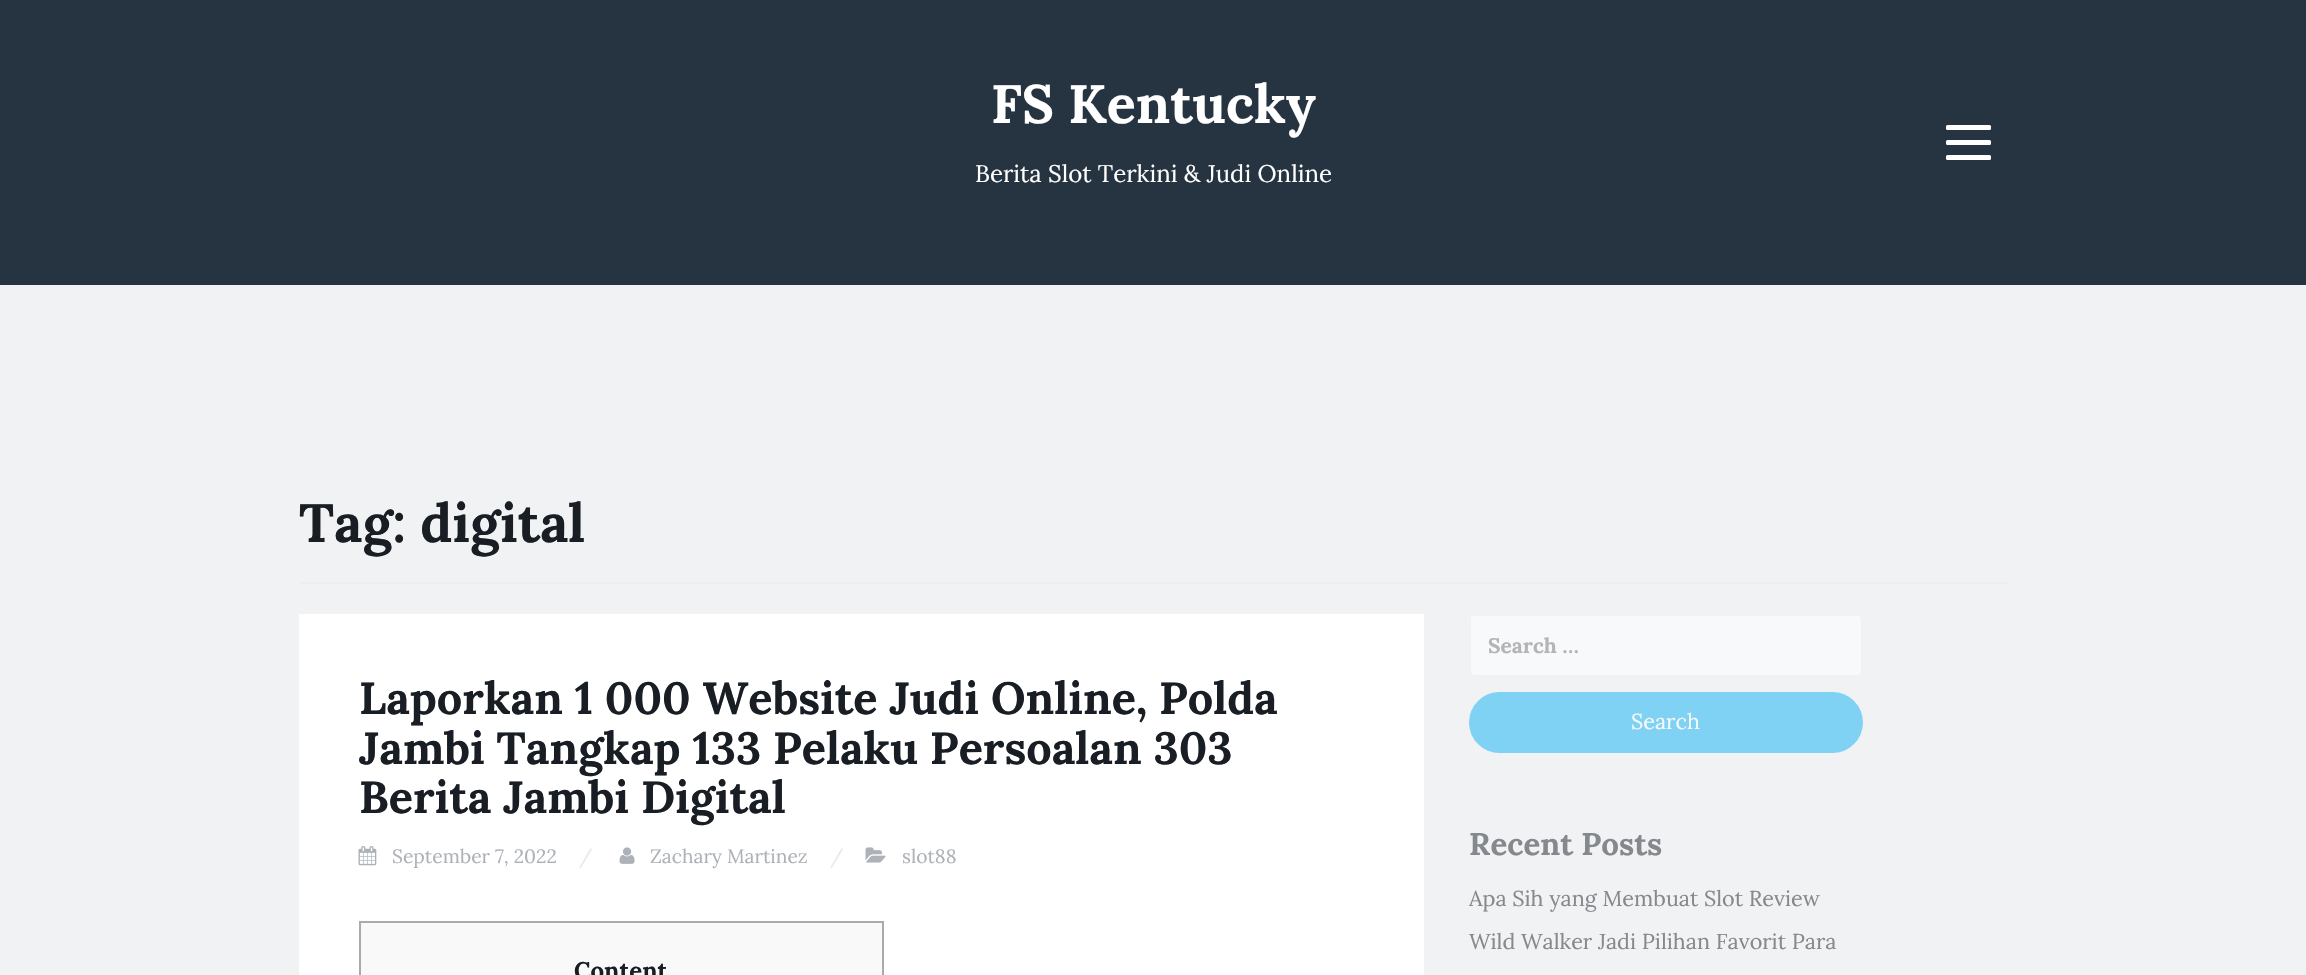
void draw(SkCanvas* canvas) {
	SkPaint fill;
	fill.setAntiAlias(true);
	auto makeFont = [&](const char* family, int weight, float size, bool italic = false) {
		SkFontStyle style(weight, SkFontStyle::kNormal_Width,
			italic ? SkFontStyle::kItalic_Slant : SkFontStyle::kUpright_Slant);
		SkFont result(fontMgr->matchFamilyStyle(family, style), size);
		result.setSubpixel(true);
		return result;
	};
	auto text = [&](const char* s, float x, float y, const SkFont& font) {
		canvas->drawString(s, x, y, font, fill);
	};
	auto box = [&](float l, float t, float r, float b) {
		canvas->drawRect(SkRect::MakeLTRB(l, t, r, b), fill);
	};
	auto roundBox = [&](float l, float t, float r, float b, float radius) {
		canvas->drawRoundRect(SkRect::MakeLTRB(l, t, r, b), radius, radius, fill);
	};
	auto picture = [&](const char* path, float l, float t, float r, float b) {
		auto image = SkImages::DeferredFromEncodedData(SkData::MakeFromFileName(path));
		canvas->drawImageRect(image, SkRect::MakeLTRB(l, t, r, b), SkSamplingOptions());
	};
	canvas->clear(0xFFF1F2F4);
	fill.setColor(0xFF263340);
	box(0, 0, 2306, 285);
	fill.setColor(0xFFFFFFFF);
	roundBox(1946, 125, 1991, 130, 1.5f);
	roundBox(1946, 140, 1991, 145, 1.5f);
	roundBox(1946, 155, 1991, 160, 1.5f);
	fill.setColor(0xFFEEEEEE);
	box(299, 582, 2009, 584);
	fill.setColor(0xFFFFFFFF);
	box(299, 614, 1424, 975);
	picture("image0.png", 358, 846, 377, 866);
	picture("image1.png", 619, 847, 635, 864);
	picture("image2.png", 865, 847, 886, 863);
	fill.setColor(0xFFF9F9F9);
	canvas->drawRect(SkRect::MakeLTRB(360, 922, 883, 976), fill);
	fill.setStyle(SkPaint::kStroke_Style);
	fill.setStrokeWidth(2);
	fill.setColor(0xFFAAAAAA);
	canvas->drawRect(SkRect::MakeLTRB(360, 922, 883, 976), fill);
	fill.setStyle(SkPaint::kFill_Style);
	fill.setColor(0xFFF8F9FA);
	canvas->drawRoundRect(SkRect::MakeLTRB(1470, 615, 1862, 676), 4, 4, fill);
	fill.setStyle(SkPaint::kStroke_Style);
	fill.setColor(0xFFF1F2F4);
	canvas->drawRoundRect(SkRect::MakeLTRB(1470, 615, 1862, 676), 4, 4, fill);
	fill.setStyle(SkPaint::kFill_Style);
	fill.setColor(0xFF80D2F5);
	roundBox(1469, 692, 1863, 753, 30.5f);
	auto font1 = makeFont("Lora", 700, 54);
	fill.setColor(0xFFFFFFFF);
	text("FS Kentucky", 991, 123, font1);
	auto font2 = makeFont("Lora", 400, 24);
	text("Berita Slot Terkini & Judi Online", 975, 182, font2);
	fill.setColor(0xFF191E24);
	text("Tag: digital", 299, 542, font1);
	auto font3 = makeFont("Lora", 700, 45);
	text("Laporkan 1 000 Website Judi Online, Polda", 359, 714, font3);
	text("Jambi Tangkap 133 Pelaku Persoalan 303", 359, 764, font3);
	text("Berita Jambi Digital", 359, 813, font3);
	auto font4 = makeFont("Lora", 400, 19.25f);
	fill.setColor(0xFFADB2B8);
	text("September 7, 2022", 392, 863, font4);
	fill.setColor(0xFFE7E9EC);
	text("/", 579, 863, font4);
	fill.setColor(0xFFADB2B8);
	text("Zachary Martinez", 650, 863, font4);
	fill.setColor(0xFFE7E9EC);
	text("/", 830, 863, font4);
	fill.setColor(0xFFADB2B8);
	text("slot88", 902, 863, font4);
	auto font5 = makeFont("Lora", 700, 24);
	fill.setColor(0xFF191E24);
	text("Content", 574, 979, font5);
	auto font6 = makeFont("Lora", 700, 21);
	fill.setColor(0xFFB3B4B5);
	text("Search …", 1488, 653, font6);
	auto font7 = makeFont("Lora", 400, 21.6f);
	fill.setColor(0xFFF8F9FA);
	text("Search", 1631, 729, font7);
	auto font8 = makeFont("Lora", 700, 31.25f);
	fill.setColor(0xFF85888C);
	text("Recent Posts", 1469, 855, font8);
	text("Apa Sih yang Membuat Slot Review", 1469, 906, font7);
	text("Wild Walker Jadi Pilihan Favorit Para", 1469, 949, font7);
}
